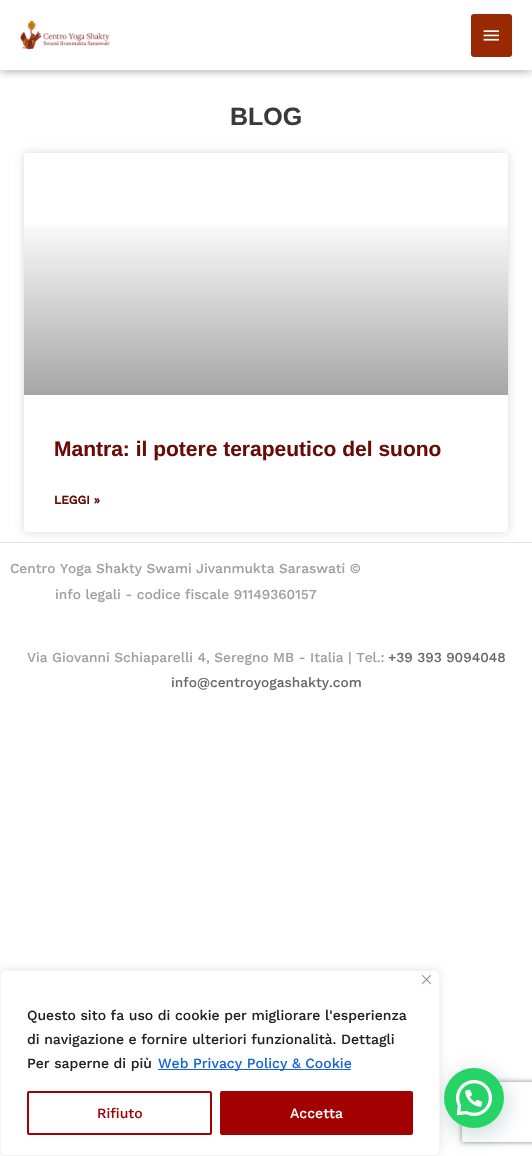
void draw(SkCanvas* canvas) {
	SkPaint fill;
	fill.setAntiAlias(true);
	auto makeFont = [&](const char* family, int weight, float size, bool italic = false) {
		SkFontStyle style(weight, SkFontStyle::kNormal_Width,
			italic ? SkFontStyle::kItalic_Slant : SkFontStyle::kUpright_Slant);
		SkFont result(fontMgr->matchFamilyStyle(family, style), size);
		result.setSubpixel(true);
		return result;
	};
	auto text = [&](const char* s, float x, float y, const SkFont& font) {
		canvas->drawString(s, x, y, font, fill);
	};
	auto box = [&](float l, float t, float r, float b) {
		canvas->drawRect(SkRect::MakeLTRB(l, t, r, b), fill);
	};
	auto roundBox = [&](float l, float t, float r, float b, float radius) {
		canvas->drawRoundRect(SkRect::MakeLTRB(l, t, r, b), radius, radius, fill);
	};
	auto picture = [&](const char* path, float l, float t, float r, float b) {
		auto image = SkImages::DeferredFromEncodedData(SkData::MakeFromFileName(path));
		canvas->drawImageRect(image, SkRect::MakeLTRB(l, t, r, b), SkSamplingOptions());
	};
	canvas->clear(0xFFFFFFFF);
	canvas->save();
	canvas->clipRect(SkRect::MakeLTRB(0, 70, 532, 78));
	fill.setColor(0x66000000);
	fill.setMaskFilter(SkMaskFilter::MakeBlur(kNormal_SkBlurStyle, 5));
	canvas->drawRect(SkRect::MakeLTRB(0, 0, 532, 70), fill);
	fill.setMaskFilter(nullptr);
	canvas->restore();
	picture("image0.png", 20, 20, 110, 50);
	fill.setColor(0xFF982902);
	roundBox(471, 14, 512, 57, 3);
	picture("image1.png", 483, 30, 499, 41);
	fill.setColor(0x26000000);
	fill.setMaskFilter(SkMaskFilter::MakeBlur(kNormal_SkBlurStyle, 5));
	canvas->drawRoundRect(SkRect::MakeLTRB(24, 153, 508, 532), 3, 3, fill);
	fill.setMaskFilter(nullptr);
	fill.setColor(0xFFFFFFFF);
	roundBox(24, 153, 508, 532, 3);
	{
		const SkColor colors[] = {0x59000000, 0x00000000};
		const float stops[] = {0, 0.75f};
		const SkPoint ends[] = {{266, 395}, {266, 153}};
		fill.setShader(SkGradientShader::MakeLinear(ends, colors, stops, 2, SkTileMode::kClamp));
		fill.setAlpha(255);
	}
	box(24, 225, 508, 395);
	fill.setShader(nullptr);
	fill.setColor(0xFFE4E4E4);
	box(0, 542, 532, 543);
	fill.setColor(0x3D075E54);
	fill.setMaskFilter(SkMaskFilter::MakeBlur(kNormal_SkBlurStyle, 12));
	canvas->drawRoundRect(SkRect::MakeLTRB(445, 1074, 505, 1134), 30, 30, fill);
	fill.setMaskFilter(nullptr);
	canvas->save();
	canvas->clipPath(SkPathBuilder(SkPathFillType::kEvenOdd).moveTo(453, 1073).lineTo(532, 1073).lineTo(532, 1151).lineTo(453, 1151).close().moveTo(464, 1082).lineTo(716, 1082).cubicTo(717, 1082, 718, 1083, 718, 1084).lineTo(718, 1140).cubicTo(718, 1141, 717, 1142, 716, 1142).lineTo(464, 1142).cubicTo(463, 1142, 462, 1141, 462, 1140).lineTo(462, 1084).cubicTo(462, 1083, 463, 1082, 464, 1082).close().detach(), true);
	fill.setColor(0xFF808080);
	fill.setMaskFilter(SkMaskFilter::MakeBlur(kNormal_SkBlurStyle, 2.5f));
	canvas->drawRoundRect(SkRect::MakeLTRB(462, 1082, 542, 1142), 2, 2, fill);
	fill.setMaskFilter(nullptr);
	canvas->restore();
	fill.setColor(0xFF25D366);
	canvas->drawCircle(474, 1098, 30, fill);
	fill.setColor(0x4DACABAB);
	fill.setMaskFilter(SkMaskFilter::MakeBlur(kNormal_SkBlurStyle, 5));
	canvas->drawRoundRect(SkRect::MakeLTRB(0, 969, 440, 1155), 6, 6, fill);
	fill.setMaskFilter(nullptr);
	fill.setColor(0xFFFFFFFF);
	canvas->drawRoundRect(SkRect::MakeLTRB(0.5f, 970.5f, 439.5f, 1155.5f), 5.5f, 5.5f, fill);
	fill.setStyle(SkPaint::kStroke_Style);
	fill.setStrokeWidth(1);
	fill.setColor(0xFFF4F4F4);
	canvas->drawRoundRect(SkRect::MakeLTRB(0.5f, 970.5f, 439.5f, 1155.5f), 5.5f, 5.5f, fill);
	picture("image2.png", 422, 975, 431, 984);
	fill.setStyle(SkPaint::kFill_Style);
	fill.setColor(0xFF1863DC);
	box(158, 1069, 351, 1070);
	fill.setStyle(SkPaint::kStroke_Style);
	fill.setStrokeWidth(2);
	fill.setColor(0xFFA30101);
	canvas->drawRoundRect(SkRect::MakeLTRB(28, 1092, 211, 1134), 1, 1, fill);
	fill.setStyle(SkPaint::kFill_Style);
	canvas->drawRoundRect(SkRect::MakeLTRB(221, 1092, 412, 1134), 1, 1, fill);
	fill.setStyle(SkPaint::kStroke_Style);
	canvas->drawRoundRect(SkRect::MakeLTRB(221, 1092, 412, 1134), 1, 1, fill);
	picture("image3.png", 456, 1080, 492, 1116);
	auto font1 = makeFont("Liberation Sans", 700, 25);
	fill.setStyle(SkPaint::kFill_Style);
	fill.setColor(0xFF3A3A3A);
	text("BLOG", 230, 125, font1);
	auto font2 = makeFont("Liberation Sans", 700, 21);
	fill.setColor(0xFF690C07);
	text("Mantra: il potere terapeutico del suono", 54, 456, font2);
	auto font3 = makeFont("Work Sans", 700, 12);
	text("LEGGI »", 54, 504, font3);
	auto font4 = makeFont("Work Sans", 500, 13.7f);
	fill.setColor(0xFF9E9E9E);
	text("Centro Yoga Shakty Swami Jivanmukta Saraswati ©", 10, 573, font4);
	text("info legali - codice fiscale 91149360157", 55, 599, font4);
	text("Via Giovanni Schiaparelli 4, Seregno MB - Italia | Tel.:", 27, 662, font4);
	fill.setColor(0xFF666666);
	text("+39 393 9094048", 388, 662, font4);
	text("info@centroyogashakty.com", 171, 687, font4);
	auto font5 = makeFont("Work Sans", 500, 14);
	fill.setColor(0xFF212121);
	text("Questo sito fa uso di cookie per migliorare l'esperienza", 27, 1020, font5);
	text("di navigazione e fornire ulteriori funzionalità. Dettagli", 27, 1044, font5);
	text("Per saperne di più", 27, 1068, font5);
	fill.setColor(0xFF1863DC);
	text("Web Privacy Policy & Cookie", 158, 1068, font5);
	fill.setColor(0xFFA30101);
	text("Rifiuto", 97, 1118, font5);
	fill.setColor(0xFFFFFFFF);
	text("Accetta", 290, 1118, font5);
}
